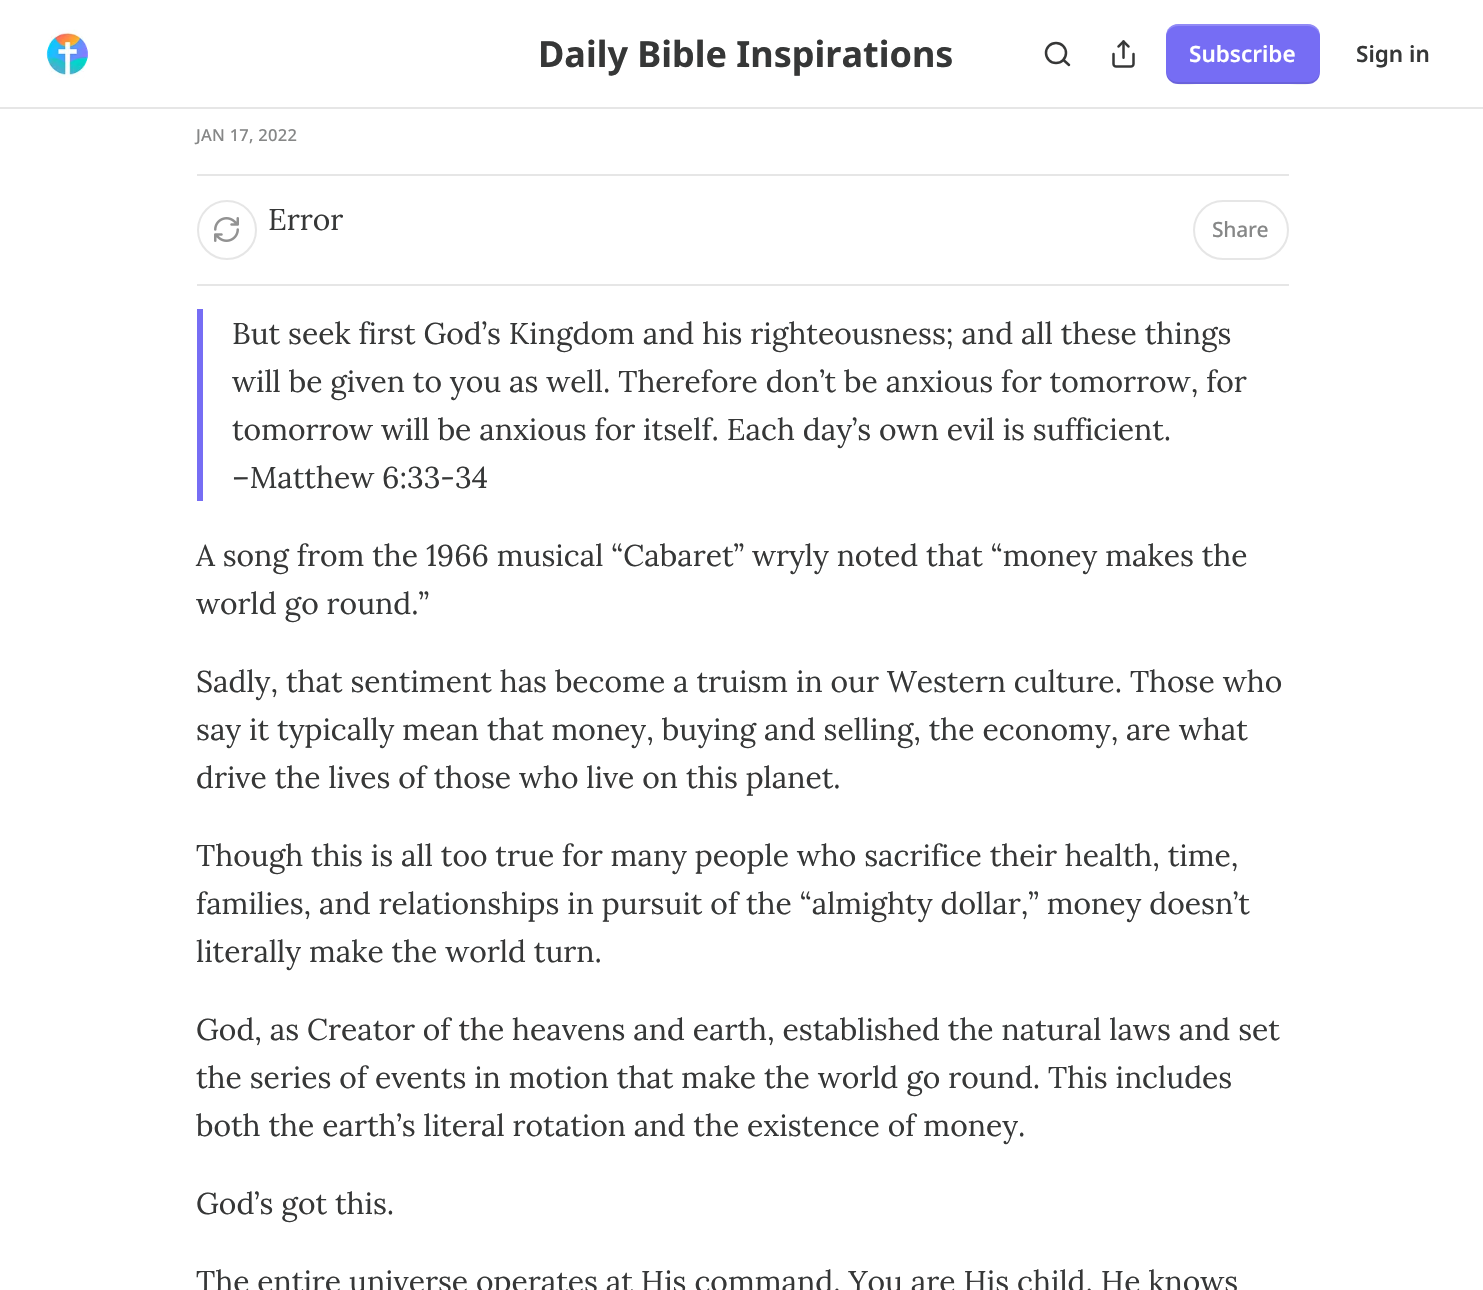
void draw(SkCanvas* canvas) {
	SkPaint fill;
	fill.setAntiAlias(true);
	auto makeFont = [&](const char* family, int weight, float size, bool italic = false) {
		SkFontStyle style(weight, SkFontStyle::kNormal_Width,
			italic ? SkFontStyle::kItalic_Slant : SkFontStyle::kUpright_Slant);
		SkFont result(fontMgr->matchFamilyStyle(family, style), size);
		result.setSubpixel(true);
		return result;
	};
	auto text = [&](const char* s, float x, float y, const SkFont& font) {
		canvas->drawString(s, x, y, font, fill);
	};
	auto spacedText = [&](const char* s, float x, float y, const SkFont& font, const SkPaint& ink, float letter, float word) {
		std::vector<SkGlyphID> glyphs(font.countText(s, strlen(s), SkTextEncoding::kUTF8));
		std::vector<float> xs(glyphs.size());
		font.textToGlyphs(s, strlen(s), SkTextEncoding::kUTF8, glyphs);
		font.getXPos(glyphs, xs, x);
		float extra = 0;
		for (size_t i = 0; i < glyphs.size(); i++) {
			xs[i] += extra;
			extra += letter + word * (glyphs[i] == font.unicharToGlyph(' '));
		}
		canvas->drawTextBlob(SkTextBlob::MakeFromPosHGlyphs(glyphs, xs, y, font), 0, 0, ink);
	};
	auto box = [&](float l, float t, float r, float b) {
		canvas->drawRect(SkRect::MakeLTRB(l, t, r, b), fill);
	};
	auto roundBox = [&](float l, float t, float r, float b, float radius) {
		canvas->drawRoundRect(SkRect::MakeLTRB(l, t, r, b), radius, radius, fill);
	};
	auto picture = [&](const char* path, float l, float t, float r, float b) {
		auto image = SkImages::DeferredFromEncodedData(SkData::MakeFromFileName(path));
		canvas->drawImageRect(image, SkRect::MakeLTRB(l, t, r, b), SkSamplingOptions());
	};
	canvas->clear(0xFFFFFFFF);
	fill.setColor(0xFFE6E6E6);
	box(0, 107, 1483, 109);
	picture("image0.png", 46, 29, 88, 78);
	fill.setStyle(SkPaint::kStroke_Style);
	fill.setStrokeWidth(2.5f);
	fill.setColor(0xFF363737);
	canvas->drawCircle(1056, 53, 10, fill);
	fill.setStrokeCap(SkPaint::kRound_Cap);
	fill.setStrokeJoin(SkPaint::kRound_Join);
	canvas->drawPath(SkPathBuilder().moveTo(1069, 65).lineTo(1063.5f, 60).detach(), fill);
	picture("image1.png", 1112, 40, 1135, 68);
	fill.setStyle(SkPaint::kFill_Style);
	fill.setColor(0xFF766DF4);
	roundBox(1166, 24, 1320, 84, 12);
	fill.setColor(0x1A000000);
	canvas->drawPath(SkPathBuilder().moveTo(1166, 70).cubicTo(1166, 89, 1186, 84, 1200, 84).lineTo(1286, 84).cubicTo(1300, 84, 1320, 89, 1320, 70).cubicTo(1320, 77, 1315, 82, 1308, 82).lineTo(1178, 82).cubicTo(1171, 82, 1166, 77, 1166, 70).close().detach(), fill);
	fill.setColor(0x33FFFFFF);
	canvas->drawPath(SkPathBuilder().moveTo(1178, 26).lineTo(1308, 26).cubicTo(1315, 26, 1320, 31, 1320, 38).cubicTo(1320, 19, 1300, 24, 1286, 24).lineTo(1200, 24).cubicTo(1186, 24, 1166, 19, 1166, 38).cubicTo(1166, 31, 1171, 26, 1178, 26).close().detach(), fill);
	fill.setColor(0xFFE6E6E6);
	box(197, 174, 1289, 176);
	box(197, 284, 1289, 286);
	fill.setStyle(SkPaint::kStroke_Style);
	fill.setStrokeWidth(2);
	fill.setStrokeCap(SkPaint::kButt_Cap);
	fill.setStrokeJoin(SkPaint::kMiter_Join);
	canvas->drawCircle(227, 230, 29, fill);
	picture("image2.png", 214, 217, 239, 242);
	canvas->drawRoundRect(SkRect::MakeLTRB(1194, 201, 1288, 259), 29, 29, fill);
	fill.setStyle(SkPaint::kFill_Style);
	fill.setColor(0xFF766DF4);
	box(197, 309, 203, 501);
	auto font1 = makeFont("Noto Sans", 700, 36);
	fill.setColor(0xFF363737);
	text("Daily Bible Inspirations", 538, 67, font1);
	auto font2 = makeFont("Noto Sans", 600, 22.5f);
	fill.setColor(0xFFFFFFFF);
	text("Subscribe", 1189, 62, font2);
	fill.setColor(0xFF363737);
	text("Sign in", 1356, 62, font2);
	auto font3 = makeFont("Noto Sans", 500, 16.5f);
	fill.setColor(0xFF868787);
	spacedText("JAN 17, 2022", 196, 141, font3, fill, 0.25f, 0);
	auto font4 = makeFont("Lora", 400, 30);
	fill.setColor(0xFF363737);
	text("Error", 268, 230, font4);
	auto font5 = makeFont("Noto Sans", 500, 21);
	fill.setColor(0xFF868787);
	spacedText("Share", 1212, 237, font5, fill, -0.25f, 0);
	fill.setColor(0xFF363737);
	text("But seek first God’s Kingdom and his righteousness; and all these things", 232, 344, font4);
	text("will be given to you as well. Therefore don’t be anxious for tomorrow, for", 232, 392, font4);
	text("tomorrow will be anxious for itself. Each day’s own evil is sufficient.", 232, 440, font4);
	text("–Matthew 6:33-34", 232, 488, font4);
	text("A song from the 1966 musical “Cabaret” wryly noted that “money makes the", 196, 566, font4);
	text("world go round.”", 196, 614, font4);
	text("Sadly, that sentiment has become a truism in our Western culture. Those who", 196, 692, font4);
	text("say it typically mean that money, buying and selling, the economy, are what", 196, 740, font4);
	text("drive the lives of those who live on this planet.", 196, 788, font4);
	text("Though this is all too true for many people who sacrifice their health, time,", 196, 866, font4);
	text("families, and relationships in pursuit of the “almighty dollar,” money doesn’t", 196, 914, font4);
	text("literally make the world turn.", 196, 962, font4);
	text("God, as Creator of the heavens and earth, established the natural laws and set", 196, 1040, font4);
	text("the series of events in motion that make the world go round. This includes", 196, 1088, font4);
	text("both the earth’s literal rotation and the existence of money.", 196, 1136, font4);
	text("God’s got this.", 196, 1214, font4);
	text("The entire universe operates at His command. You are His child. He knows", 196, 1292, font4);
}
